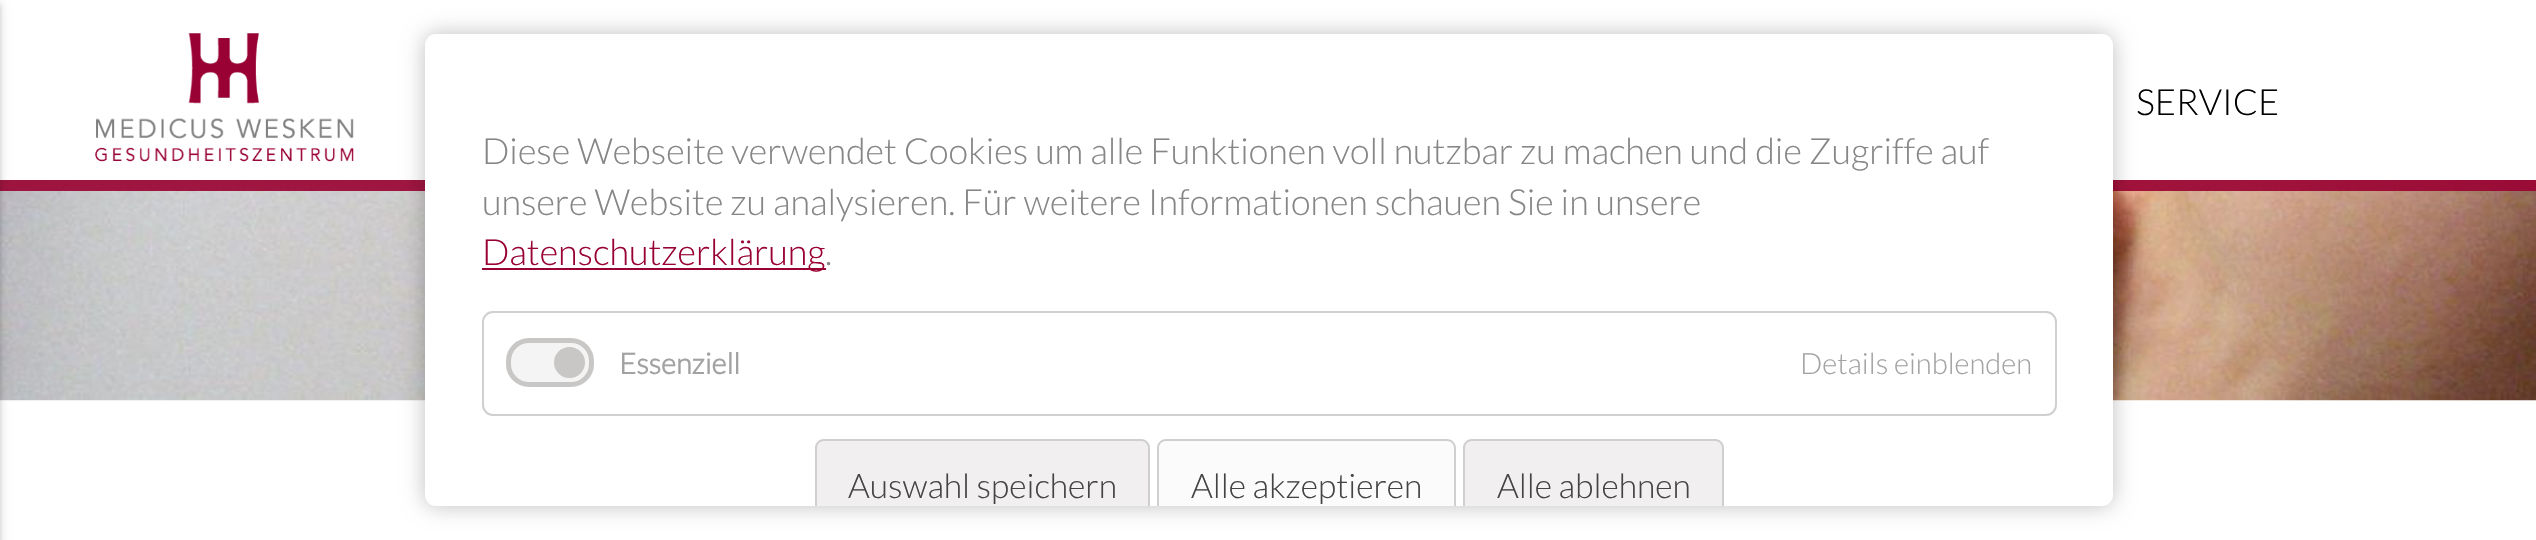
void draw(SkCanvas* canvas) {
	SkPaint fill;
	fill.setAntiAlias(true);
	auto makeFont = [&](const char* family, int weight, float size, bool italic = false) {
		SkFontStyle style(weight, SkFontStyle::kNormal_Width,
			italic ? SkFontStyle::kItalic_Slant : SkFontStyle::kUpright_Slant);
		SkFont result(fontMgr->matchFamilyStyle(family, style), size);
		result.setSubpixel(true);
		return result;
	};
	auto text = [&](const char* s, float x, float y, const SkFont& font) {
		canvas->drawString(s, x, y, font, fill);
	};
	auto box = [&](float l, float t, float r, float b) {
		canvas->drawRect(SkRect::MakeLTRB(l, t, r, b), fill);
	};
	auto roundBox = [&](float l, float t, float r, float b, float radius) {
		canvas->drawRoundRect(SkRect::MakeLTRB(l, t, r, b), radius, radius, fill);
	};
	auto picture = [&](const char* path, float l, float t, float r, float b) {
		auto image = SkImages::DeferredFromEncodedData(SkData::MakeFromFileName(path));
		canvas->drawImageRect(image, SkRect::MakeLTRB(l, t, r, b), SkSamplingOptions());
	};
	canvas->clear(0xFFFFFFFF);
	picture("image1.png", 0, 180, 2536, 401);
	fill.setColor(0xE6990132);
	box(0, 180, 2536, 191);
	fill.setColor(0x1F000000);
	fill.setMaskFilter(SkMaskFilter::MakeBlur(kNormal_SkBlurStyle, 5.5f));
	canvas->drawRect(SkRect::MakeLTRB(-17, 2, 0, 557), fill);
	fill.setMaskFilter(nullptr);
	fill.setColor(0x24000000);
	fill.setMaskFilter(SkMaskFilter::MakeBlur(kNormal_SkBlurStyle, 2));
	canvas->drawRect(SkRect::MakeLTRB(-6, 5, 0, 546), fill);
	fill.setMaskFilter(nullptr);
	picture("image0.png", 95, 33, 354, 162);
	fill.setColor(0x40000000);
	fill.setMaskFilter(SkMaskFilter::MakeBlur(kNormal_SkBlurStyle, 11));
	canvas->drawRoundRect(SkRect::MakeLTRB(425, 34, 2113, 506), 11, 11, fill);
	fill.setMaskFilter(nullptr);
	fill.setColor(0xFFFFFFFF);
	roundBox(425, 34, 2113, 506, 11);
	fill.setColor(0xFF990132);
	box(482, 268, 826, 270);
	fill.setStyle(SkPaint::kStroke_Style);
	fill.setStrokeWidth(2);
	fill.setColor(0xFFD0D0D0);
	canvas->drawRoundRect(SkRect::MakeLTRB(483, 312, 2056, 415), 10, 10, fill);
	fill.setStyle(SkPaint::kFill_Style);
	fill.setColor(0xFFF4F4F4);
	canvas->drawRoundRect(SkRect::MakeLTRB(508.5f, 340.5f, 591.5f, 384.5f), 20.5f, 20.5f, fill);
	fill.setStyle(SkPaint::kStroke_Style);
	fill.setStrokeWidth(5);
	fill.setColor(0xFFC8C7C5);
	canvas->drawRoundRect(SkRect::MakeLTRB(508.5f, 340.5f, 591.5f, 384.5f), 20.5f, 20.5f, fill);
	fill.setStyle(SkPaint::kFill_Style);
	canvas->drawCircle(569.5f, 362.5f, 15.5f, fill);
	fill.setColor(0xFFF1EFEF);
	canvas->drawPath(SkPathBuilder().moveTo(824, 439).lineTo(1141, 439).cubicTo(1146, 439, 1150, 443, 1150, 448).lineTo(1150, 506).lineTo(815, 506).lineTo(815, 448).cubicTo(815, 443, 819, 439, 824, 439).close().detach(), fill);
	fill.setColor(0xFFCFCFCF);
	canvas->drawPath(SkPathBuilder().moveTo(824, 439).cubicTo(819, 439, 815, 443, 815, 448).lineTo(815, 506).lineTo(817, 506).lineTo(817, 448).cubicTo(817, 444, 820, 441, 824, 441).lineTo(1141, 441).cubicTo(1145, 441, 1148, 444, 1148, 448).lineTo(1148, 506).lineTo(1150, 506).lineTo(1150, 448).cubicTo(1150, 443, 1146, 439, 1141, 439).close().detach(), fill);
	fill.setColor(0xFFFBFBFB);
	canvas->drawPath(SkPathBuilder().moveTo(1166, 439).lineTo(1447, 439).cubicTo(1452, 439, 1456, 443, 1456, 448).lineTo(1456, 506).lineTo(1157, 506).lineTo(1157, 448).cubicTo(1157, 443, 1161, 439, 1166, 439).close().detach(), fill);
	fill.setColor(0xFFCFCFCF);
	canvas->drawPath(SkPathBuilder().moveTo(1166, 439).cubicTo(1161, 439, 1157, 443, 1157, 448).lineTo(1157, 506).lineTo(1159, 506).lineTo(1159, 448).cubicTo(1159, 444, 1162, 441, 1166, 441).lineTo(1447, 441).cubicTo(1451, 441, 1454, 444, 1454, 448).lineTo(1454, 506).lineTo(1456, 506).lineTo(1456, 448).cubicTo(1456, 443, 1452, 439, 1447, 439).close().detach(), fill);
	fill.setColor(0xFFF1EFEF);
	canvas->drawPath(SkPathBuilder().moveTo(1472, 439).lineTo(1715, 439).cubicTo(1720, 439, 1724, 443, 1724, 448).lineTo(1724, 506).lineTo(1463, 506).lineTo(1463, 448).cubicTo(1463, 443, 1467, 439, 1472, 439).close().detach(), fill);
	fill.setColor(0xFFCFCFCF);
	canvas->drawPath(SkPathBuilder().moveTo(1472, 439).cubicTo(1467, 439, 1463, 443, 1463, 448).lineTo(1463, 506).lineTo(1465, 506).lineTo(1465, 448).cubicTo(1465, 444, 1468, 441, 1472, 441).lineTo(1715, 441).cubicTo(1719, 441, 1722, 444, 1722, 448).lineTo(1722, 506).lineTo(1724, 506).lineTo(1724, 448).cubicTo(1724, 443, 1720, 439, 1715, 439).close().detach(), fill);
	auto font1 = makeFont("Lato", 300, 36);
	fill.setColor(0xFF000000);
	text("SERVICE", 2136, 115, font1);
	fill.setColor(0xFF868686);
	text("Diese Webseite verwendet Cookies um alle Funktionen voll nutzbar zu machen und die Zugriffe auf", 482, 164, font1);
	text("unsere Website zu analysieren. Für weitere Informationen schauen Sie in unsere", 482, 215, font1);
	fill.setColor(0xFF990132);
	text("Datenschutzerklärung", 482, 265, font1);
	fill.setColor(0xFF868686);
	text(".", 825, 265, font1);
	auto font2 = makeFont("Lato", 700, 29);
	fill.setColor(0xFFA2A2A2);
	text("Essenziell", 619, 374, font2);
	auto font3 = makeFont("Lato", 300, 29.25f);
	text("Details einblenden", 1800, 374, font3);
	auto font4 = makeFont("Lato", 300, 33.75f);
	fill.setColor(0xFF444444);
	text("Auswahl speichern", 848, 498, font4);
	text("Alle akzeptieren", 1191, 498, font4);
	text("Alle ablehnen", 1497, 498, font4);
}
